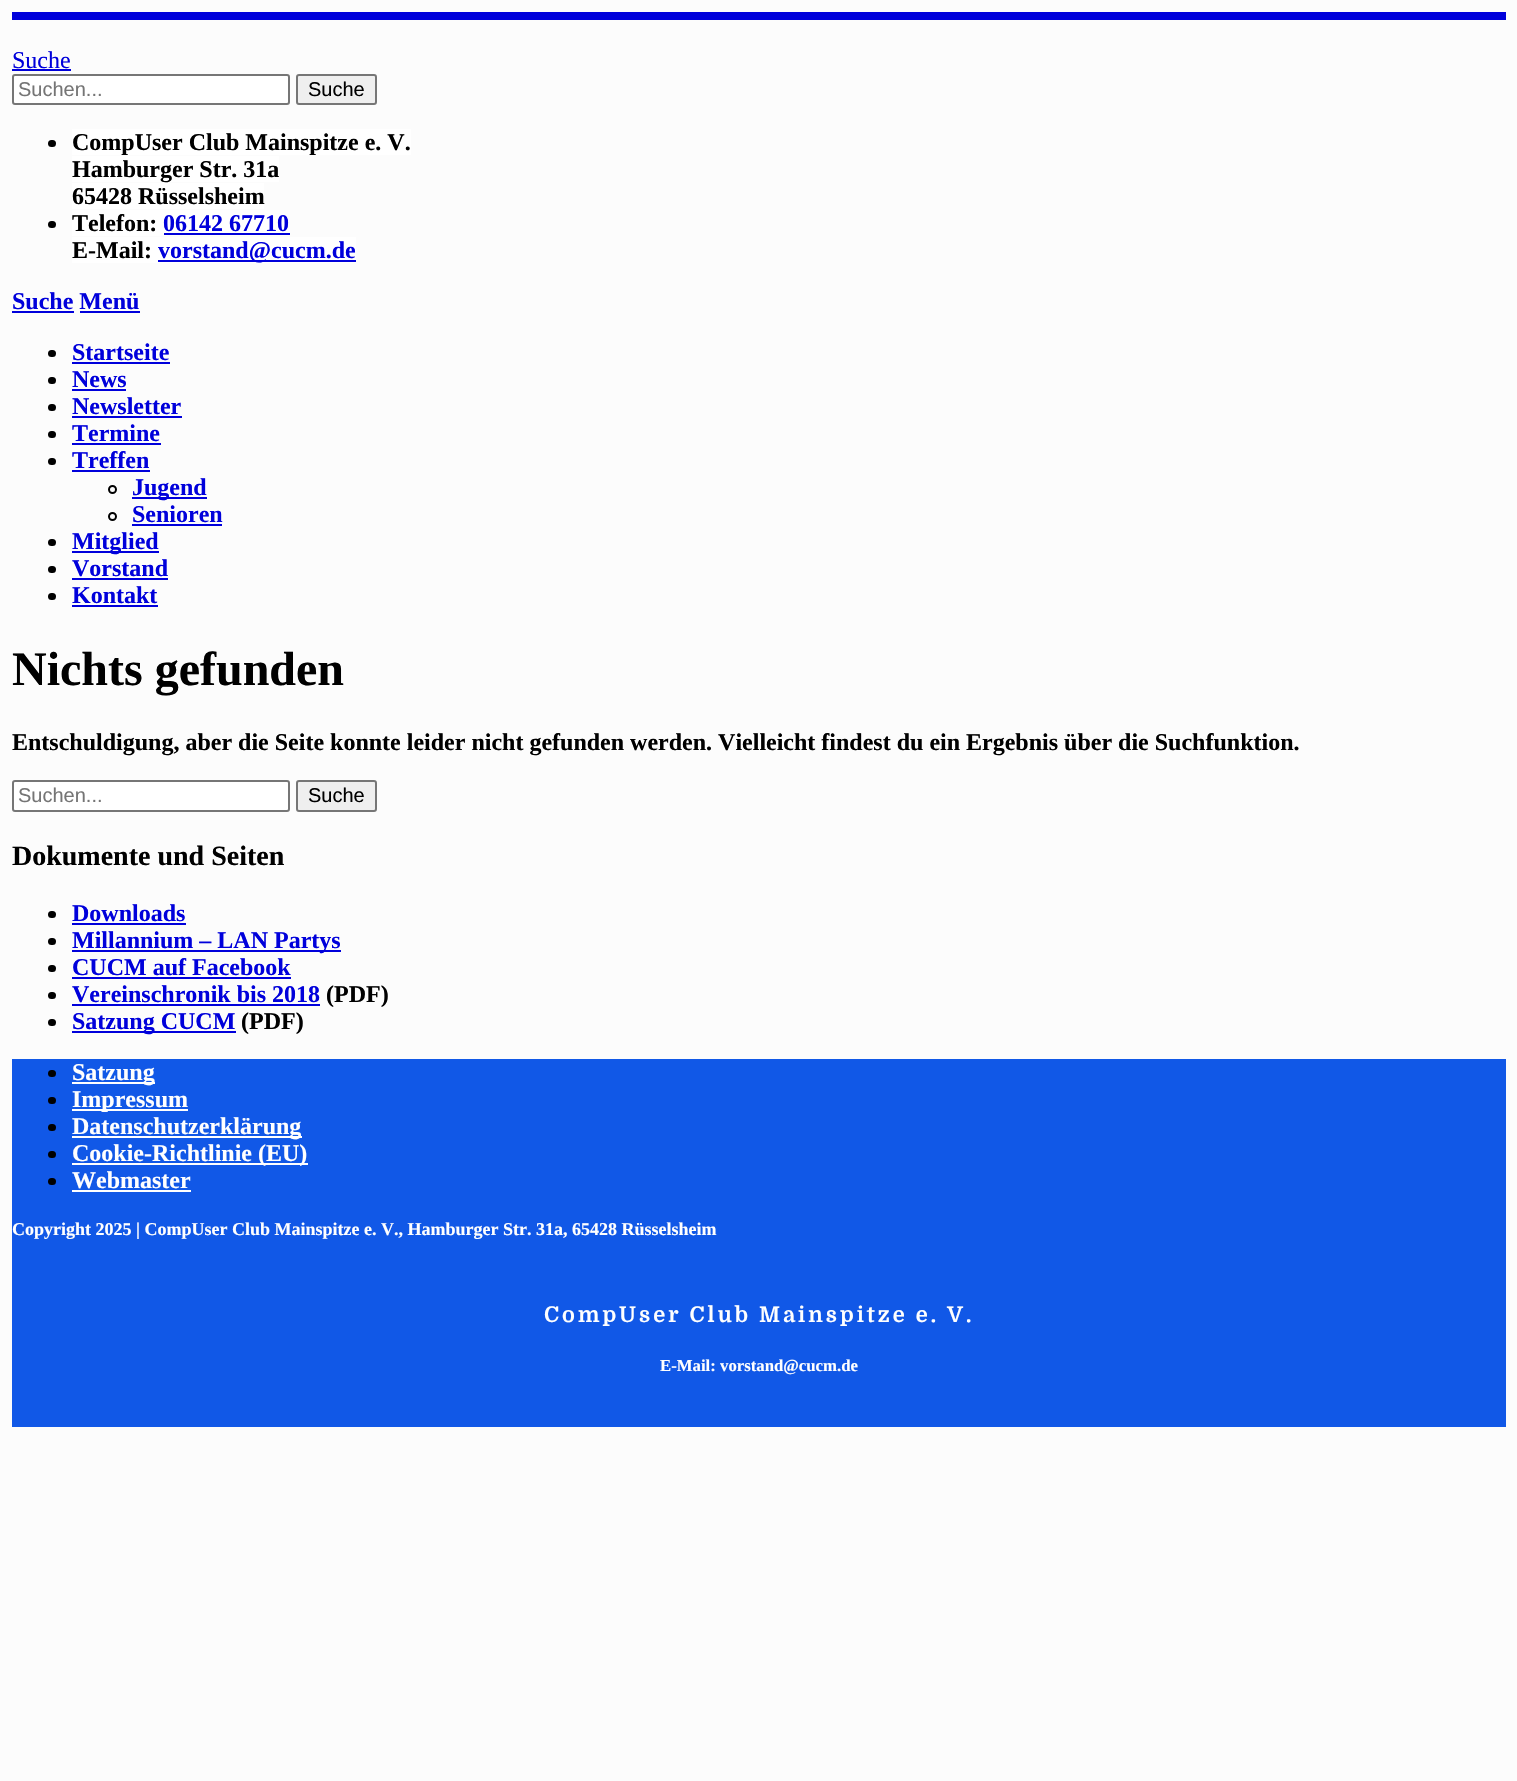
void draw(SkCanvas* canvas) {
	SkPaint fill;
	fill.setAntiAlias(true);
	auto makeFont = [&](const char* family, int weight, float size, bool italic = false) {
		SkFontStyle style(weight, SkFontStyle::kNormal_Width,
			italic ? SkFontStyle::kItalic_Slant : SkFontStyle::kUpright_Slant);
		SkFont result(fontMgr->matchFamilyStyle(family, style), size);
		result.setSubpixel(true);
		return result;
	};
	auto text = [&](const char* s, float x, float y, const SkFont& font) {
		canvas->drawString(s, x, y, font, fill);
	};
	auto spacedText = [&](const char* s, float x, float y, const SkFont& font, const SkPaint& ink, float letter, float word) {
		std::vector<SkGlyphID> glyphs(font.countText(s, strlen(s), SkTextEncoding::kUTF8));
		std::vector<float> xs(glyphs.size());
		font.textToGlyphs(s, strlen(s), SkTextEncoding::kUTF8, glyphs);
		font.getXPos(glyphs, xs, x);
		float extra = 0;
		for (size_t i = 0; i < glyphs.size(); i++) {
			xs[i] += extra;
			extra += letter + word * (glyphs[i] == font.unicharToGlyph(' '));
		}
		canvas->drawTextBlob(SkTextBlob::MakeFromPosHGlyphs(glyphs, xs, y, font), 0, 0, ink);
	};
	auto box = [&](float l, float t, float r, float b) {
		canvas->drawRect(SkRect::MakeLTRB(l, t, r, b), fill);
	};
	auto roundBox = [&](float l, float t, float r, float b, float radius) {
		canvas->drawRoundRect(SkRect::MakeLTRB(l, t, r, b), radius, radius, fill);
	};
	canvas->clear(0xFFFCFCFC);
	fill.setColor(0xFF0000DB);
	box(12, 12, 1506, 20);
	box(12, 69, 71, 71);
	fill.setColor(0xFFFFFFFF);
	canvas->drawRoundRect(SkRect::MakeLTRB(13, 75, 289, 104), 2, 2, fill);
	fill.setStyle(SkPaint::kStroke_Style);
	fill.setStrokeWidth(2);
	fill.setColor(0xFF767676);
	canvas->drawRoundRect(SkRect::MakeLTRB(13, 75, 289, 104), 2, 2, fill);
	fill.setStyle(SkPaint::kFill_Style);
	fill.setColor(0xFFEFEFEF);
	canvas->drawRoundRect(SkRect::MakeLTRB(297, 75, 376, 104), 2, 2, fill);
	fill.setStyle(SkPaint::kStroke_Style);
	fill.setColor(0xFF767676);
	canvas->drawRoundRect(SkRect::MakeLTRB(297, 75, 376, 104), 2, 2, fill);
	fill.setStyle(SkPaint::kFill_Style);
	fill.setColor(0xFF000000);
	roundBox(48, 140, 56, 147, 3.5f);
	fill.setColor(0xFFFFFFFF);
	box(72, 129, 411, 155);
	box(72, 156, 279, 182);
	box(72, 183, 264, 209);
	fill.setColor(0xFF000000);
	roundBox(48, 221, 56, 228, 3.5f);
	fill.setColor(0xFFFFFFFF);
	box(72, 210, 290, 236);
	fill.setColor(0xFF0000DB);
	box(164, 233, 290, 235);
	fill.setColor(0xFFFFFFFF);
	box(72, 237, 356, 263);
	fill.setColor(0xFF0000DB);
	box(158, 260, 356, 262);
	box(12, 311, 74, 313);
	box(80, 311, 140, 313);
	fill.setColor(0xFF000000);
	roundBox(48, 350, 56, 357, 3.5f);
	fill.setColor(0xFF0000DB);
	box(72, 362, 170, 364);
	fill.setColor(0xFF000000);
	roundBox(48, 377, 56, 384, 3.5f);
	fill.setColor(0xFF0000DB);
	box(72, 389, 126, 391);
	fill.setColor(0xFF000000);
	roundBox(48, 404, 56, 411, 3.5f);
	fill.setColor(0xFF0000DB);
	box(72, 416, 182, 418);
	fill.setColor(0xFF000000);
	roundBox(48, 431, 56, 438, 3.5f);
	fill.setColor(0xFF0000DB);
	box(72, 443, 161, 445);
	fill.setColor(0xFF000000);
	roundBox(48, 458, 56, 465, 3.5f);
	fill.setColor(0xFF0000DB);
	box(72, 470, 150, 472);
	fill.setStyle(SkPaint::kStroke_Style);
	fill.setColor(0xFF000000);
	canvas->drawCircle(112.5f, 489.5f, 3.5f, fill);
	fill.setStyle(SkPaint::kFill_Style);
	fill.setColor(0xFF0000DB);
	box(132, 497, 207, 499);
	fill.setStyle(SkPaint::kStroke_Style);
	fill.setColor(0xFF000000);
	canvas->drawCircle(112.5f, 516.5f, 3.5f, fill);
	fill.setStyle(SkPaint::kFill_Style);
	fill.setColor(0xFF0000DB);
	box(132, 524, 222, 526);
	fill.setColor(0xFF000000);
	roundBox(48, 539, 56, 546, 3.5f);
	fill.setColor(0xFF0000DB);
	box(72, 551, 159, 553);
	fill.setColor(0xFF000000);
	roundBox(48, 566, 56, 573, 3.5f);
	fill.setColor(0xFF0000DB);
	box(72, 578, 168, 580);
	fill.setColor(0xFF000000);
	roundBox(48, 593, 56, 600, 3.5f);
	fill.setColor(0xFF0000DB);
	box(72, 605, 158, 607);
	fill.setColor(0xFFFFFFFF);
	canvas->drawRoundRect(SkRect::MakeLTRB(13, 781, 289, 811), 2, 2, fill);
	fill.setStyle(SkPaint::kStroke_Style);
	fill.setColor(0xFF767676);
	canvas->drawRoundRect(SkRect::MakeLTRB(13, 781, 289, 811), 2, 2, fill);
	fill.setStyle(SkPaint::kFill_Style);
	fill.setColor(0xFFEFEFEF);
	canvas->drawRoundRect(SkRect::MakeLTRB(297, 781, 376, 811), 2, 2, fill);
	fill.setStyle(SkPaint::kStroke_Style);
	fill.setColor(0xFF767676);
	canvas->drawRoundRect(SkRect::MakeLTRB(297, 781, 376, 811), 2, 2, fill);
	fill.setStyle(SkPaint::kFill_Style);
	fill.setColor(0xFF000000);
	roundBox(48, 911, 56, 918, 3.5f);
	fill.setColor(0xFF0000DB);
	box(72, 923, 186, 925);
	fill.setColor(0xFF000000);
	roundBox(48, 938, 56, 945, 3.5f);
	fill.setColor(0xFF0000DB);
	box(72, 950, 341, 952);
	fill.setColor(0xFF000000);
	roundBox(48, 965, 56, 972, 3.5f);
	fill.setColor(0xFF0000DB);
	box(72, 977, 291, 979);
	fill.setColor(0xFF000000);
	roundBox(48, 992, 56, 999, 3.5f);
	fill.setColor(0xFF0000DB);
	box(72, 1004, 320, 1006);
	fill.setColor(0xFF000000);
	roundBox(48, 1019, 56, 1026, 3.5f);
	fill.setColor(0xFF0000DB);
	box(72, 1031, 236, 1033);
	fill.setColor(0xFF1158E7);
	box(12, 1059, 1506, 1427);
	fill.setColor(0xFF000000);
	roundBox(48, 1070, 56, 1077, 3.5f);
	fill.setColor(0xFFFFFFFF);
	box(72, 1082, 155, 1084);
	fill.setColor(0xFF000000);
	roundBox(48, 1097, 56, 1104, 3.5f);
	fill.setColor(0xFFFFFFFF);
	box(72, 1109, 188, 1111);
	fill.setColor(0xFF000000);
	roundBox(48, 1124, 56, 1131, 3.5f);
	fill.setColor(0xFFFFFFFF);
	box(72, 1136, 302, 1138);
	fill.setColor(0xFF000000);
	roundBox(48, 1151, 56, 1158, 3.5f);
	fill.setColor(0xFFFFFFFF);
	box(72, 1163, 308, 1165);
	fill.setColor(0xFF000000);
	roundBox(48, 1178, 56, 1185, 3.5f);
	fill.setColor(0xFFFFFFFF);
	box(72, 1190, 191, 1192);
	auto font1 = makeFont("Liberation Serif", 400, 24);
	fill.setColor(0xFF0000DB);
	text("Suche", 12, 68, font1);
	auto font2 = makeFont("Liberation Sans", 400, 20);
	fill.setColor(0xFF757575);
	text("Suchen...", 18, 96, font2);
	fill.setColor(0xFF000000);
	text("Suche", 308, 96, font2);
	auto font3 = makeFont("Liberation Serif", 700, 24);
	text("CompUser Club Mainspitze e. V.", 72, 150, font3);
	text("Hamburger Str. 31a", 72, 177, font3);
	text("65428 Rüsselsheim", 72, 204, font3);
	text("Telefon:", 72, 231, font3);
	fill.setColor(0xFF0000DB);
	text("06142 67710", 163, 231, font3);
	fill.setColor(0xFF000000);
	text("E-Mail:", 72, 258, font3);
	fill.setColor(0xFF0000DB);
	text("vorstand@cucm.de", 158, 258, font3);
	text("Suche Menü", 12, 309, font3);
	text("Startseite", 72, 360, font3);
	text("News", 72, 387, font3);
	text("Newsletter", 72, 414, font3);
	text("Termine", 72, 441, font3);
	text("Treffen", 72, 468, font3);
	text("Jugend", 132, 495, font3);
	text("Senioren", 132, 522, font3);
	text("Mitglied", 72, 549, font3);
	text("Vorstand", 72, 576, font3);
	text("Kontakt", 72, 603, font3);
	auto font4 = makeFont("Liberation Serif", 700, 48);
	fill.setColor(0xFF000000);
	text("Nichts gefunden", 12, 685, font4);
	text("Entschuldigung, aber die Seite konnte leider nicht gefunden werden. Vielleicht findest du ein Ergebnis über die Suchfunktion.", 12, 750, font3);
	fill.setColor(0xFF757575);
	text("Suchen...", 18, 802, font2);
	fill.setColor(0xFF000000);
	text("Suche", 308, 802, font2);
	auto font5 = makeFont("Liberation Serif", 700, 28);
	text("Dokumente und Seiten", 12, 865, font5);
	fill.setColor(0xFF0000DB);
	text("Downloads", 72, 921, font3);
	text("Millannium – LAN Partys", 72, 948, font3);
	text("CUCM auf Facebook", 72, 975, font3);
	text("Vereinschronik bis 2018", 72, 1002, font3);
	fill.setColor(0xFF000000);
	text("(PDF)", 326, 1002, font3);
	fill.setColor(0xFF0000DB);
	text("Satzung CUCM", 72, 1029, font3);
	fill.setColor(0xFF000000);
	text("(PDF)", 241, 1029, font3);
	fill.setColor(0xFFFFFFFF);
	text("Satzung", 72, 1080, font3);
	text("Impressum", 72, 1107, font3);
	text("Datenschutzerklärung", 72, 1134, font3);
	text("Cookie-Richtlinie (EU)", 72, 1161, font3);
	text("Webmaster", 72, 1188, font3);
	auto font6 = makeFont("Liberation Serif", 700, 18);
	text("Copyright 2025 | CompUser Club Mainspitze e. V., Hamburger Str. 31a, 65428 Rüsselsheim", 12, 1235, font6);
	auto font7 = makeFont("Domine", 700, 21.6f);
	spacedText("CompUser Club Mainspitze e. V.", 544, 1322, font7, fill, 3, 0);
	auto font8 = makeFont("Liberation Serif", 700, 16.75f);
	text("E-Mail: vorstand@cucm.de", 660, 1371, font8);
}
